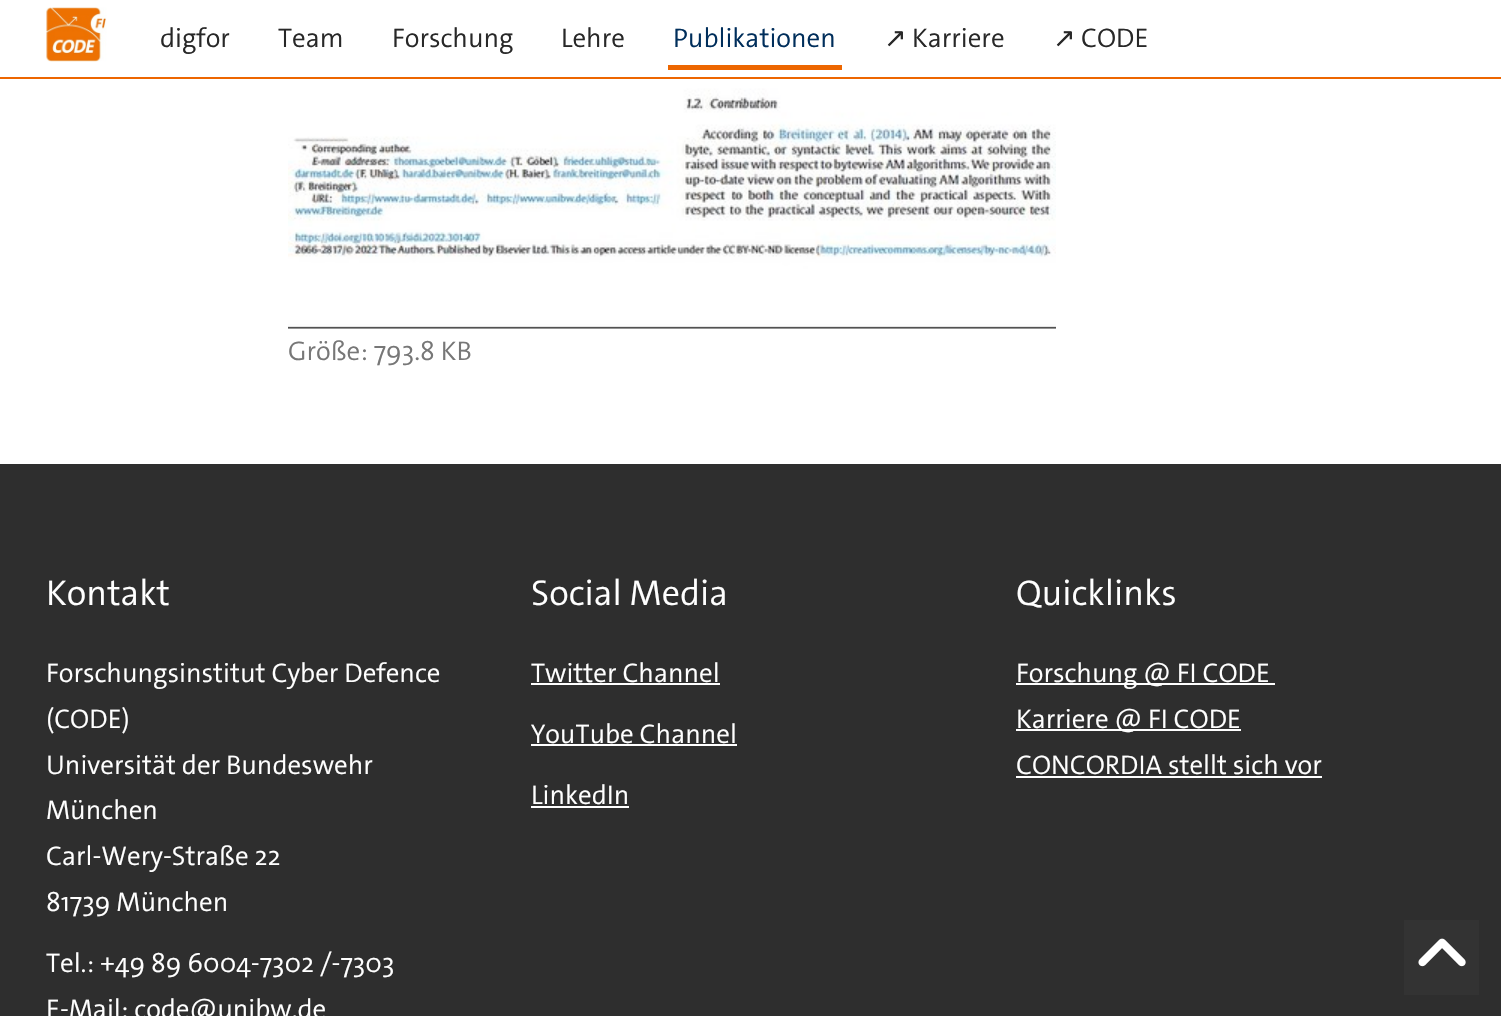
void draw(SkCanvas* canvas) {
	SkPaint fill;
	fill.setAntiAlias(true);
	auto makeFont = [&](const char* family, int weight, float size, bool italic = false) {
		SkFontStyle style(weight, SkFontStyle::kNormal_Width,
			italic ? SkFontStyle::kItalic_Slant : SkFontStyle::kUpright_Slant);
		SkFont result(fontMgr->matchFamilyStyle(family, style), size);
		result.setSubpixel(true);
		return result;
	};
	auto text = [&](const char* s, float x, float y, const SkFont& font) {
		canvas->drawString(s, x, y, font, fill);
	};
	auto box = [&](float l, float t, float r, float b) {
		canvas->drawRect(SkRect::MakeLTRB(l, t, r, b), fill);
	};
	auto picture = [&](const char* path, float l, float t, float r, float b) {
		auto image = SkImages::DeferredFromEncodedData(SkData::MakeFromFileName(path));
		canvas->drawImageRect(image, SkRect::MakeLTRB(l, t, r, b), SkSamplingOptions());
	};
	canvas->clear(0xFFFFFFFF);
	fill.setColor(0xFFED6600);
	box(0, 77, 1501, 79);
	picture("image0.png", 46, 7, 107, 62);
	box(668, 65, 842, 70);
	picture("image1.png", 288, 79, 1056, 329);
	fill.setColor(0xFF2E2E2E);
	box(0, 464, 1501, 1016);
	fill.setColor(0xFFFFFFFF);
	box(531, 683, 720, 685);
	box(531, 744, 737, 746);
	box(531, 806, 629, 808);
	box(1016, 683, 1275, 685);
	box(1016, 729, 1241, 731);
	box(1016, 776, 1322, 778);
	fill.setColor(0xFF333333);
	box(1404, 920, 1479, 995);
	picture("image2.png", 1418, 938, 1466, 967);
	auto font1 = makeFont("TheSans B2", 300, 27);
	fill.setColor(0xFF282828);
	text("digfor", 160, 47, font1);
	text("Team", 278, 47, font1);
	text("Forschung", 392, 47, font1);
	text("Lehre", 561, 47, font1);
	fill.setColor(0xFF002E5B);
	text("Publikationen", 673, 47, font1);
	auto font2 = makeFont("DejaVu Sans", 400, 27);
	fill.setColor(0xFF282828);
	text("↗", 884, 47, font2);
	text("Karriere", 912, 47, font1);
	text("↗", 1053, 47, font2);
	text("CODE", 1081, 47, font1);
	fill.setColor(0xFF777777);
	text("Größe: 793.8 KB", 288, 360, font1);
	auto font3 = makeFont("TheSans B2", 300, 36);
	fill.setColor(0xFFFFFFFF);
	text("Kontakt", 46, 605, font3);
	text("Forschungsinstitut Cyber Defence", 46, 682, font1);
	text("(CODE)", 46, 728, font1);
	text("Universität der Bundeswehr", 46, 774, font1);
	text("München", 46, 819, font1);
	text("Carl-Wery-Straße 22", 46, 865, font1);
	text("81739 München", 46, 911, font1);
	text("Tel.: +49 89 6004-7302 /-7303", 46, 972, font1);
	text("E-Mail: code@unibw.de", 46, 1018, font1);
	text("Social Media", 531, 605, font3);
	text("Twitter Channel", 531, 682, font1);
	text("YouTube Channel", 531, 743, font1);
	text("LinkedIn", 531, 804, font1);
	text("Quicklinks", 1016, 605, font3);
	text("Forschung @ FI CODE", 1016, 682, font1);
	text("Karriere @ FI CODE", 1016, 728, font1);
	text("CONCORDIA stellt sich vor", 1016, 774, font1);
}
